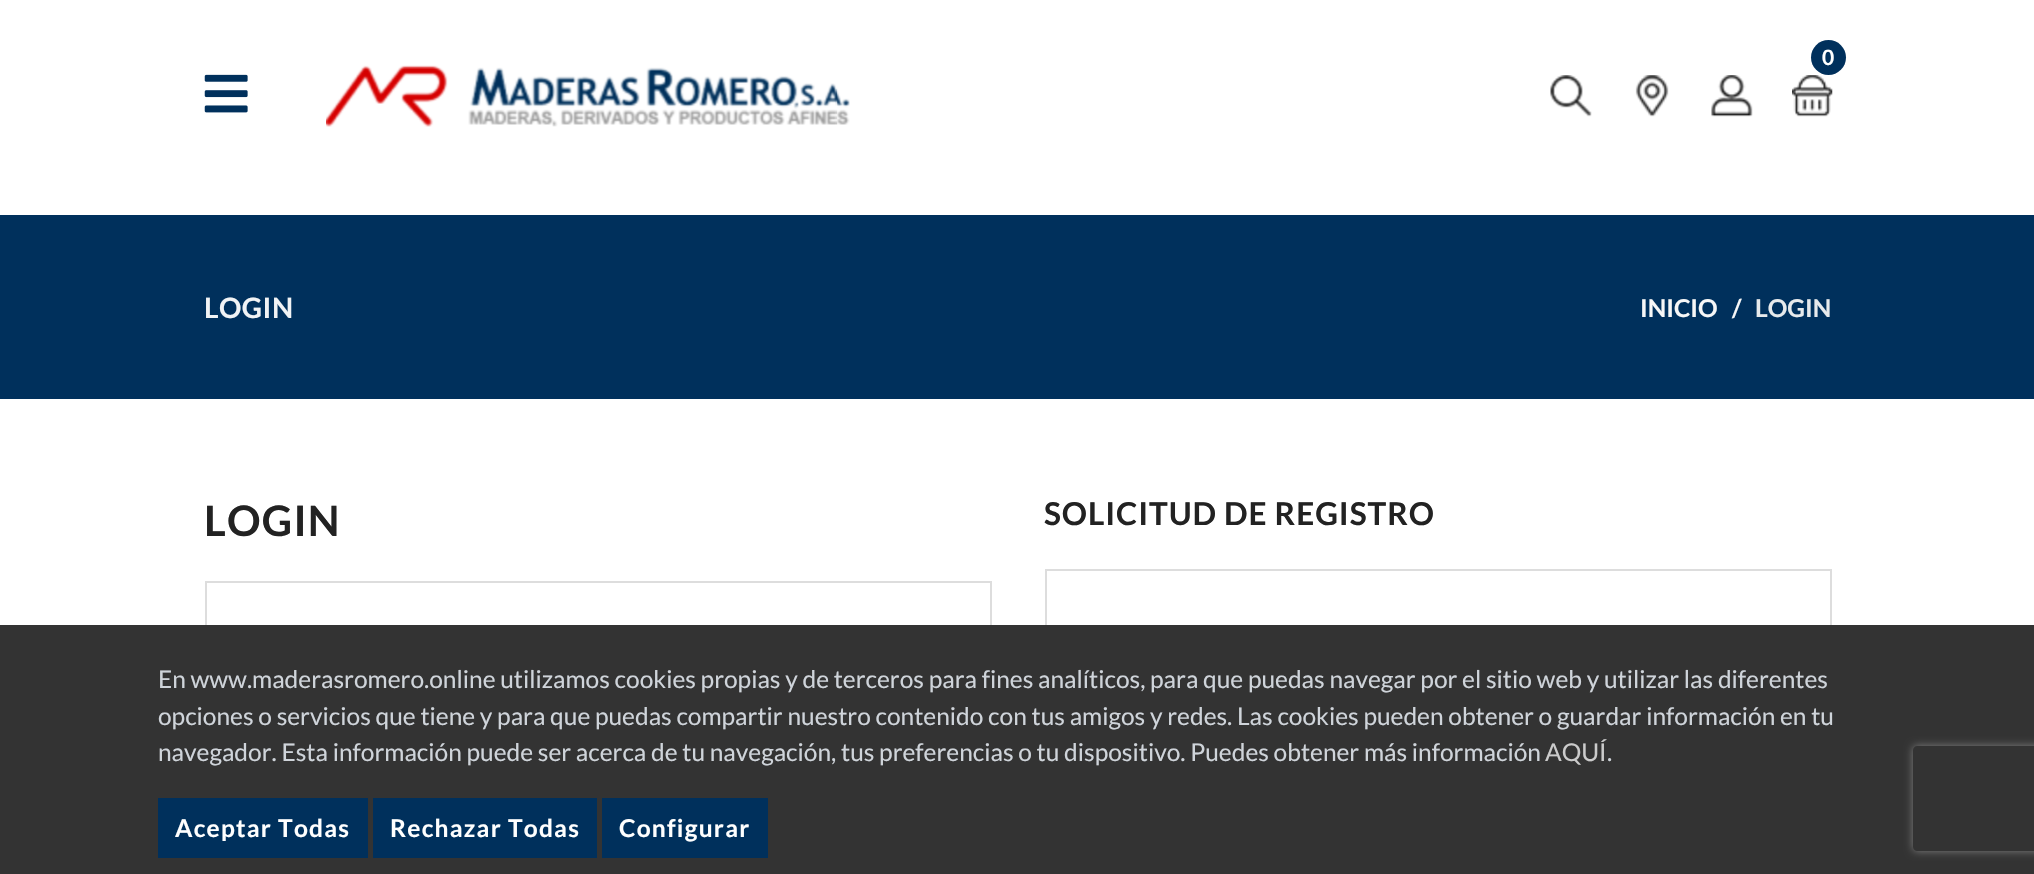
void draw(SkCanvas* canvas) {
	SkPaint fill;
	fill.setAntiAlias(true);
	auto makeFont = [&](const char* family, int weight, float size, bool italic = false) {
		SkFontStyle style(weight, SkFontStyle::kNormal_Width,
			italic ? SkFontStyle::kItalic_Slant : SkFontStyle::kUpright_Slant);
		SkFont result(fontMgr->matchFamilyStyle(family, style), size);
		result.setSubpixel(true);
		return result;
	};
	auto text = [&](const char* s, float x, float y, const SkFont& font) {
		canvas->drawString(s, x, y, font, fill);
	};
	auto spacedText = [&](const char* s, float x, float y, const SkFont& font, const SkPaint& ink, float letter, float word) {
		std::vector<SkGlyphID> glyphs(font.countText(s, strlen(s), SkTextEncoding::kUTF8));
		std::vector<float> xs(glyphs.size());
		font.textToGlyphs(s, strlen(s), SkTextEncoding::kUTF8, glyphs);
		font.getXPos(glyphs, xs, x);
		float extra = 0;
		for (size_t i = 0; i < glyphs.size(); i++) {
			xs[i] += extra;
			extra += letter + word * (glyphs[i] == font.unicharToGlyph(' '));
		}
		canvas->drawTextBlob(SkTextBlob::MakeFromPosHGlyphs(glyphs, xs, y, font), 0, 0, ink);
	};
	auto box = [&](float l, float t, float r, float b) {
		canvas->drawRect(SkRect::MakeLTRB(l, t, r, b), fill);
	};
	auto picture = [&](const char* path, float l, float t, float r, float b) {
		auto image = SkImages::DeferredFromEncodedData(SkData::MakeFromFileName(path));
		canvas->drawImageRect(image, SkRect::MakeLTRB(l, t, r, b), SkSamplingOptions());
	};
	canvas->clear(0xFFFFFFFF);
	fill.setColor(0xFF00305C);
	canvas->drawCircle(1828.5f, 57.5f, 17.5f, fill);
	picture("image0.png", 1792, 75, 1833, 117);
	picture("image1.png", 1550, 75, 1592, 117);
	picture("image2.png", 1635, 75, 1669, 117);
	picture("image3.png", 1711, 75, 1753, 117);
	picture("image4.png", 204, 74, 248, 113);
	picture("image5.png", 326, 65, 850, 127);
	box(0, 215, 2034, 399);
	fill.setStyle(SkPaint::kStroke_Style);
	fill.setStrokeWidth(2);
	fill.setColor(0xFFDDDDDD);
	canvas->drawRect(SkRect::MakeLTRB(206, 582, 991, 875), fill);
	canvas->drawRect(SkRect::MakeLTRB(1046, 570, 1831, 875), fill);
	fill.setStyle(SkPaint::kFill_Style);
	fill.setColor(0xFF333333);
	box(0, 625, 2034, 874);
	{
		const SkColor colors[] = {0xFF00305C, 0xFF333333};
		const float stops[] = {0.5f, 0.5f};
		const SkPoint ends[] = {{707, 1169}, {1102, 486}};
		fill.setShader(SkGradientShader::MakeLinear(ends, colors, stops, 2, SkTileMode::kClamp));
		fill.setAlpha(255);
	}
	box(162, 802, 364, 854);
	fill.setStyle(SkPaint::kStroke_Style);
	fill.setStrokeWidth(4);
	fill.setShader(nullptr);
	fill.setColor(0xFF00305C);
	canvas->drawRect(SkRect::MakeLTRB(160, 800, 366, 856), fill);
	fill.setStyle(SkPaint::kFill_Style);
	{
		const SkColor colors[] = {0xFF00305C, 0xFF333333};
		const float stops[] = {0.5f, 0.5f};
		const SkPoint ends[] = {{923, 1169}, {1317, 486}};
		fill.setShader(SkGradientShader::MakeLinear(ends, colors, stops, 2, SkTileMode::kClamp));
		fill.setAlpha(255);
	}
	box(377, 802, 593, 854);
	fill.setStyle(SkPaint::kStroke_Style);
	fill.setShader(nullptr);
	fill.setColor(0xFF00305C);
	canvas->drawRect(SkRect::MakeLTRB(375, 800, 595, 856), fill);
	fill.setStyle(SkPaint::kFill_Style);
	{
		const SkColor colors[] = {0xFF00305C, 0xFF333333};
		const float stops[] = {0.5f, 0.5f};
		const SkPoint ends[] = {{1152, 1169}, {1547, 486}};
		fill.setShader(SkGradientShader::MakeLinear(ends, colors, stops, 2, SkTileMode::kClamp));
		fill.setAlpha(255);
	}
	box(606, 802, 764, 854);
	fill.setStyle(SkPaint::kStroke_Style);
	fill.setShader(nullptr);
	fill.setColor(0xFF00305C);
	canvas->drawRect(SkRect::MakeLTRB(604, 800, 766, 856), fill);
	canvas->save();
	canvas->clipPath(SkPathBuilder(SkPathFillType::kEvenOdd).moveTo(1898, 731).lineTo(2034, 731).lineTo(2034, 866).lineTo(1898, 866).close().moveTo(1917, 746).lineTo(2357, 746).cubicTo(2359, 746, 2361, 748, 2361, 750).lineTo(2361, 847).cubicTo(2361, 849, 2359, 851, 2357, 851).lineTo(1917, 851).cubicTo(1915, 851, 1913, 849, 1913, 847).lineTo(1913, 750).cubicTo(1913, 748, 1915, 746, 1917, 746).close().detach(), true);
	fill.setStyle(SkPaint::kFill_Style);
	fill.setColor(0xFF808080);
	fill.setMaskFilter(SkMaskFilter::MakeBlur(kNormal_SkBlurStyle, 4.5f));
	canvas->drawRoundRect(SkRect::MakeLTRB(1913, 746, 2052, 851), 4, 4, fill);
	fill.setMaskFilter(nullptr);
	canvas->restore();
	auto font1 = makeFont("Lato", 700, 21);
	fill.setColor(0xFFFFFFFF);
	text("0", 1822, 65, font1);
	auto font2 = makeFont("Lato", 700, 28);
	fill.setColor(0xFFF1F3F5);
	spacedText("LOGIN", 204, 318, font2, fill, 0.5f, 0);
	auto font3 = makeFont("Lato", 700, 24.5f);
	fill.setColor(0xFFF7F7F7);
	text("INICIO", 1640, 317, font3);
	text("/", 1732, 317, font3);
	fill.setColor(0xFFE7EAEC);
	text("LOGIN", 1755, 317, font3);
	auto font4 = makeFont("Lato", 700, 42);
	fill.setColor(0xFF222222);
	spacedText("LOGIN", 204, 536, font4, fill, 1.25f, 0);
	auto font5 = makeFont("Lato", 700, 31.5f);
	spacedText("SOLICITUD DE REGISTRO", 1044, 525, font5, fill, 0.95f, 0);
	auto font6 = makeFont("Lato", 400, 24.5f);
	fill.setColor(0xFFCFD4DA);
	text("En www.maderasromero.online utilizamos cookies propias y de terceros para fines analíticos, para que puedas navegar por el sitio web y utilizar las diferentes", 158, 688, font6);
	text("opciones o servicios que tiene y para que puedas compartir nuestro contenido con tus amigos y redes. Las cookies pueden obtener o guardar información en tu", 158, 725, font6);
	text("navegador. Esta información puede ser acerca de tu navegación, tus preferencias o tu dispositivo. Puedes obtener más información", 158, 761, font6);
	fill.setColor(0xFFCBCBCB);
	text("AQUÍ", 1545, 761, font6);
	fill.setColor(0xFFCFD4DA);
	text(".", 1607, 761, font6);
	fill.setColor(0xFFFFFFFF);
	spacedText("Aceptar Todas", 175, 837, font3, fill, 1.25f, 0);
	spacedText("Rechazar Todas", 390, 837, font3, fill, 1.25f, 0);
	spacedText("Configurar", 619, 837, font3, fill, 1.25f, 0);
}
